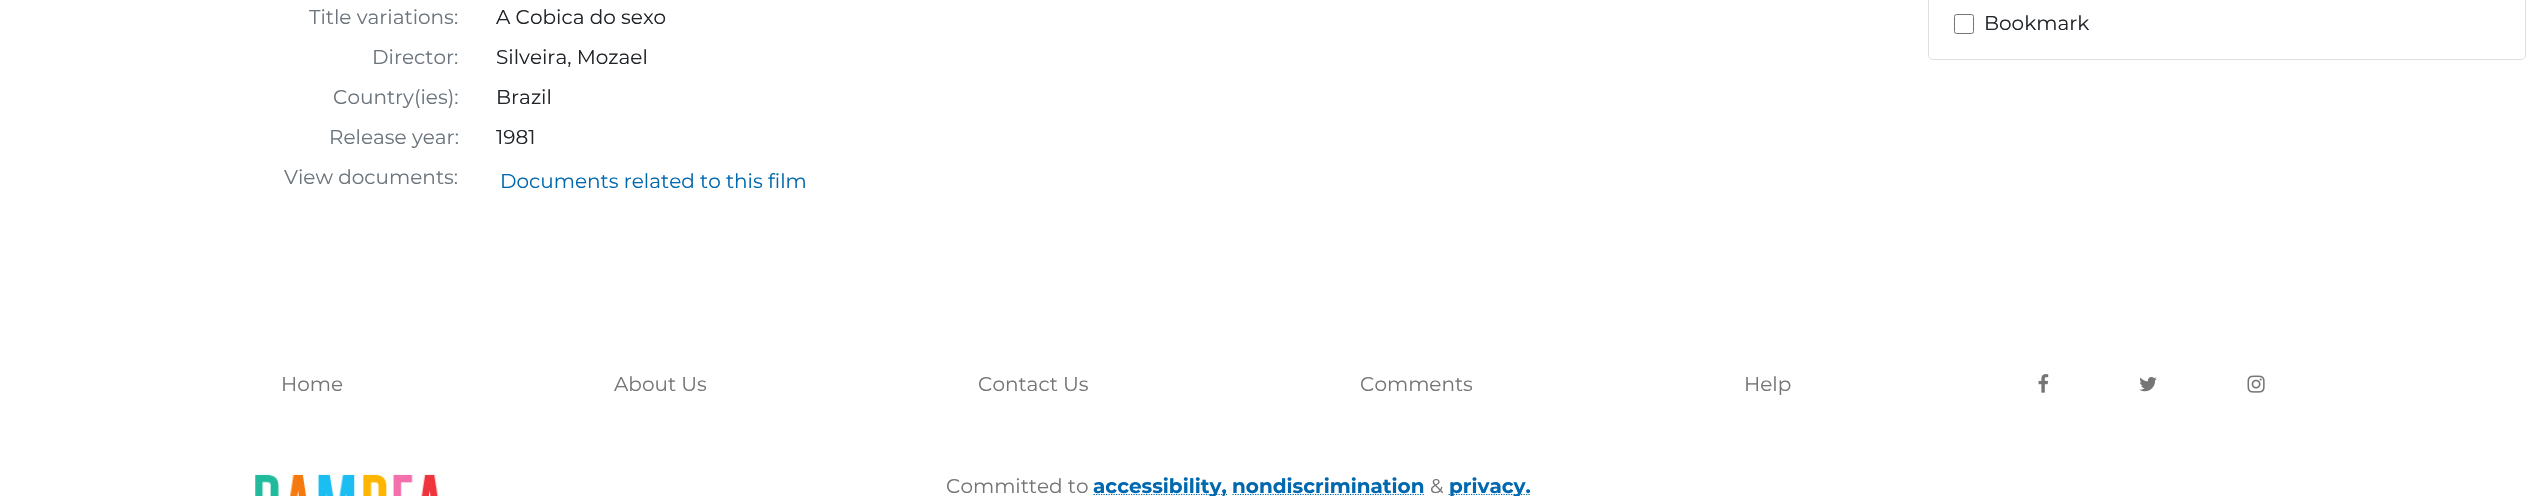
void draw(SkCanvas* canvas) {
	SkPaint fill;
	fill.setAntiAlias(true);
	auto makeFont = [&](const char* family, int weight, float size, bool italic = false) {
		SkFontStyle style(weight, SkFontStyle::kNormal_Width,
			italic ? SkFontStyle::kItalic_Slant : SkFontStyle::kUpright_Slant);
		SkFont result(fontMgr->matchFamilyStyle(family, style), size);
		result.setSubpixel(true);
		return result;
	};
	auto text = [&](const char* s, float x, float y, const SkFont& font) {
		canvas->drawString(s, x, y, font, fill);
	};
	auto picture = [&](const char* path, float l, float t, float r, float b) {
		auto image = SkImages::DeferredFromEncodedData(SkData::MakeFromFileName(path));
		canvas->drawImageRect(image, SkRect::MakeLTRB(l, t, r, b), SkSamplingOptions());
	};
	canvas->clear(0xFFFFFFFF);
	fill.setStyle(SkPaint::kStroke_Style);
	fill.setStrokeWidth(1);
	fill.setColor(0xFFDFDFDF);
	canvas->drawRoundRect(SkRect::MakeLTRB(1928.5f, -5.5f, 2525.5f, 59.5f), 4.5f, 4.5f, fill);
	fill.setStyle(SkPaint::kFill_Style);
	fill.setColor(0xFFFFFFFF);
	canvas->drawPath(SkPathBuilder().moveTo(1929, -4).lineTo(2525, -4).lineTo(2525, 55).cubicTo(2525, 57, 2523, 59, 2521, 59).lineTo(1933, 59).cubicTo(1931, 59, 1929, 57, 1929, 55).close().detach(), fill);
	fill.setStyle(SkPaint::kStroke_Style);
	fill.setColor(0xFF767676);
	canvas->drawRoundRect(SkRect::MakeLTRB(1954.5f, 14.5f, 1973.5f, 33.5f), 2, 2, fill);
	picture("image0.png", 2038, 374, 2049, 393);
	picture("image1.png", 2139, 377, 2157, 392);
	picture("image2.png", 2247, 375, 2265, 393);
	picture("image3.png", 255, 471, 439, 496);
	fill.setStrokeWidth(1.2f);
	fill.setColor(0xFF0068AF);
	fill.setPathEffect(SkDashPathEffect::Make({{1.25f, 1.25f}}, 0));
	canvas->drawPath(SkPathBuilder().moveTo(1093.5f, 494.5f).lineTo(1227, 494.5f).detach(), fill);
	fill.setPathEffect(nullptr);
	fill.setPathEffect(SkDashPathEffect::Make({{1.25f, 1.25f}}, 0));
	canvas->drawPath(SkPathBuilder().moveTo(1232.5f, 494.5f).lineTo(1425, 494.5f).detach(), fill);
	fill.setPathEffect(nullptr);
	fill.setPathEffect(SkDashPathEffect::Make({{1.25f, 1.25f}}, 0));
	canvas->drawPath(SkPathBuilder().moveTo(1448.5f, 494.5f).lineTo(1530.5f, 494.5f).detach(), fill);
	fill.setPathEffect(nullptr);
	auto font1 = makeFont("Montserrat", 400, 20);
	fill.setStyle(SkPaint::kFill_Style);
	fill.setColor(0xFF6C757D);
	text("Title variations:", 309, 24, font1);
	fill.setColor(0xFF212529);
	text("A Cobica do sexo", 496, 24, font1);
	fill.setColor(0xFF6C757D);
	text("Director:", 372, 64, font1);
	fill.setColor(0xFF212529);
	text("Silveira, Mozael", 496, 64, font1);
	fill.setColor(0xFF6C757D);
	text("Country(ies):", 333, 104, font1);
	fill.setColor(0xFF212529);
	text("Brazil", 496, 104, font1);
	fill.setColor(0xFF6C757D);
	text("Release year:", 329, 144, font1);
	fill.setColor(0xFF212529);
	text("1981", 496, 144, font1);
	fill.setColor(0xFF6C757D);
	text("View documents:", 284, 184, font1);
	fill.setColor(0xFF0068AF);
	text("Documents related to this film", 500, 188, font1);
	fill.setColor(0xFF212529);
	text("Bookmark", 1984, 30, font1);
	fill.setColor(0xFF757575);
	text("Home", 281, 391, font1);
	text("About Us", 614, 391, font1);
	text("Contact Us", 978, 391, font1);
	text("Comments", 1360, 391, font1);
	text("Help", 1744, 391, font1);
	text("Committed to", 946, 493, font1);
	auto font2 = makeFont("Montserrat", 700, 20);
	fill.setColor(0xFF0068AF);
	text("accessibility,", 1093, 493, font2);
	text("nondiscrimination", 1232, 493, font2);
	fill.setColor(0xFF757575);
	text("&", 1430, 493, font1);
	fill.setColor(0xFF0068AF);
	text("privacy.", 1449, 493, font2);
}
